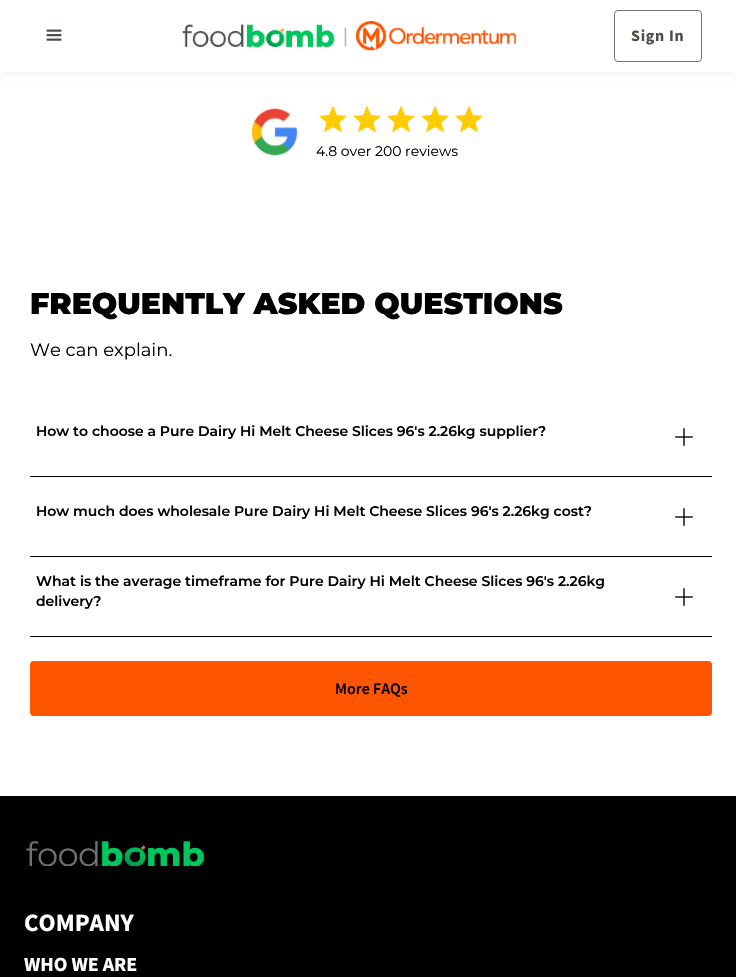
void draw(SkCanvas* canvas) {
	SkPaint fill;
	fill.setAntiAlias(true);
	auto makeFont = [&](const char* family, int weight, float size, bool italic = false) {
		SkFontStyle style(weight, SkFontStyle::kNormal_Width,
			italic ? SkFontStyle::kItalic_Slant : SkFontStyle::kUpright_Slant);
		SkFont result(fontMgr->matchFamilyStyle(family, style), size);
		result.setSubpixel(true);
		return result;
	};
	auto text = [&](const char* s, float x, float y, const SkFont& font) {
		canvas->drawString(s, x, y, font, fill);
	};
	auto spacedText = [&](const char* s, float x, float y, const SkFont& font, const SkPaint& ink, float letter, float word) {
		std::vector<SkGlyphID> glyphs(font.countText(s, strlen(s), SkTextEncoding::kUTF8));
		std::vector<float> xs(glyphs.size());
		font.textToGlyphs(s, strlen(s), SkTextEncoding::kUTF8, glyphs);
		font.getXPos(glyphs, xs, x);
		float extra = 0;
		for (size_t i = 0; i < glyphs.size(); i++) {
			xs[i] += extra;
			extra += letter + word * (glyphs[i] == font.unicharToGlyph(' '));
		}
		canvas->drawTextBlob(SkTextBlob::MakeFromPosHGlyphs(glyphs, xs, y, font), 0, 0, ink);
	};
	auto box = [&](float l, float t, float r, float b) {
		canvas->drawRect(SkRect::MakeLTRB(l, t, r, b), fill);
	};
	auto roundBox = [&](float l, float t, float r, float b, float radius) {
		canvas->drawRoundRect(SkRect::MakeLTRB(l, t, r, b), radius, radius, fill);
	};
	auto picture = [&](const char* path, float l, float t, float r, float b) {
		auto image = SkImages::DeferredFromEncodedData(SkData::MakeFromFileName(path));
		canvas->drawImageRect(image, SkRect::MakeLTRB(l, t, r, b), SkSamplingOptions());
	};
	canvas->clear(0xFFFFFFFF);
	fill.setColor(0x0D000000);
	fill.setMaskFilter(SkMaskFilter::MakeBlur(kNormal_SkBlurStyle, 3));
	canvas->drawRect(SkRect::MakeLTRB(1, 4, 735, 74), fill);
	fill.setMaskFilter(nullptr);
	fill.setColor(0xFFFFFFFF);
	box(0, 1, 736, 72);
	picture("image0.png", 46, 29, 62, 41);
	picture("image1.png", 182, 21, 516, 51);
	fill.setStyle(SkPaint::kStroke_Style);
	fill.setStrokeWidth(1);
	fill.setColor(0xFF6E7370);
	canvas->drawRoundRect(SkRect::MakeLTRB(614.5f, 10.5f, 701.5f, 61.5f), 3.5f, 3.5f, fill);
	picture("image2.png", 251, 108, 298, 156);
	fill.setStyle(SkPaint::kFill_Style);
	fill.setColor(0xFFFFCC00);
	canvas->drawPath(SkPathBuilder().moveTo(333, 127).lineTo(342, 132.5f).lineTo(339.5f, 122.5f).lineTo(347, 116).lineTo(337, 115).lineTo(333, 105.5f).lineTo(329, 115).lineTo(319, 116).lineTo(326.5f, 122.5f).lineTo(324, 132.5f).close().moveTo(367, 127).lineTo(376, 132.5f).lineTo(373.5f, 122.5f).lineTo(381, 116).lineTo(371, 115).lineTo(367, 105.5f).lineTo(363, 115).lineTo(353, 116).lineTo(360.5f, 122.5f).lineTo(358, 132.5f).close().detach(), fill);
	canvas->drawPath(SkPathBuilder().moveTo(401, 127).lineTo(410, 132.5f).lineTo(407.5f, 122.5f).lineTo(415, 116).lineTo(405, 115).lineTo(401, 105.5f).lineTo(397, 115).lineTo(387, 116).lineTo(394.5f, 122.5f).lineTo(392, 132.5f).close().moveTo(435, 127).lineTo(444, 132.5f).lineTo(441.5f, 122.5f).lineTo(449, 116).lineTo(439, 115).lineTo(435, 105.5f).lineTo(431, 115).lineTo(421, 116).lineTo(428.5f, 122.5f).lineTo(426, 132.5f).close().detach(), fill);
	canvas->drawPath(SkPathBuilder().moveTo(469, 127).lineTo(478, 132.5f).lineTo(475.5f, 122.5f).lineTo(483, 116).lineTo(473, 115).lineTo(469, 105.5f).lineTo(465, 115).lineTo(455, 116).lineTo(462.5f, 122.5f).lineTo(460, 132.5f).close().detach(), fill);
	fill.setColor(0xFF000000);
	box(30, 476, 712, 477);
	picture("image3.png", 675, 428, 693, 446);
	box(30, 556, 712, 557);
	picture("image3.png", 675, 508, 693, 526);
	box(30, 636, 712, 637);
	picture("image3.png", 675, 588, 693, 606);
	fill.setColor(0xFFFF5500);
	roundBox(30, 661, 712, 716, 4);
	fill.setColor(0xFF000000);
	box(0, 796, 736, 977);
	picture("image4.png", 26, 841, 204, 866);
	auto font1 = makeFont("Source Sans Pro", 700, 16);
	fill.setColor(0xFF485146);
	spacedText("Sign In", 631, 41, font1, fill, 0.75f, 0);
	auto font2 = makeFont("Montserrat", 400, 14);
	fill.setColor(0xFF000000);
	text("4.8 over 200 reviews", 316, 156, font2);
	auto font3 = makeFont("Montserrat", 900, 30);
	text("FREQUENTLY ASKED QUESTIONS", 30, 314, font3);
	auto font4 = makeFont("Montserrat", 400, 18);
	text("We can explain.", 30, 356, font4);
	auto font5 = makeFont("Montserrat", 600, 14);
	text("How to choose a Pure Dairy Hi Melt Cheese Slices 96's 2.26kg supplier?", 36, 436, font5);
	text("How much does wholesale Pure Dairy Hi Melt Cheese Slices 96's 2.26kg cost?", 36, 516, font5);
	text("What is the average timeframe for Pure Dairy Hi Melt Cheese Slices 96's 2.26kg", 36, 586, font5);
	text("delivery?", 36, 606, font5);
	auto font6 = makeFont("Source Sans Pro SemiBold", 600, 16);
	text("More FAQs", 335, 694, font6);
	auto font7 = makeFont("Source Sans Pro", 700, 25);
	fill.setColor(0xFFFFFFFF);
	text("COMPANY", 24, 931, font7);
	auto font8 = makeFont("Source Sans Pro", 700, 20);
	text("WHO WE ARE", 24, 971, font8);
}
